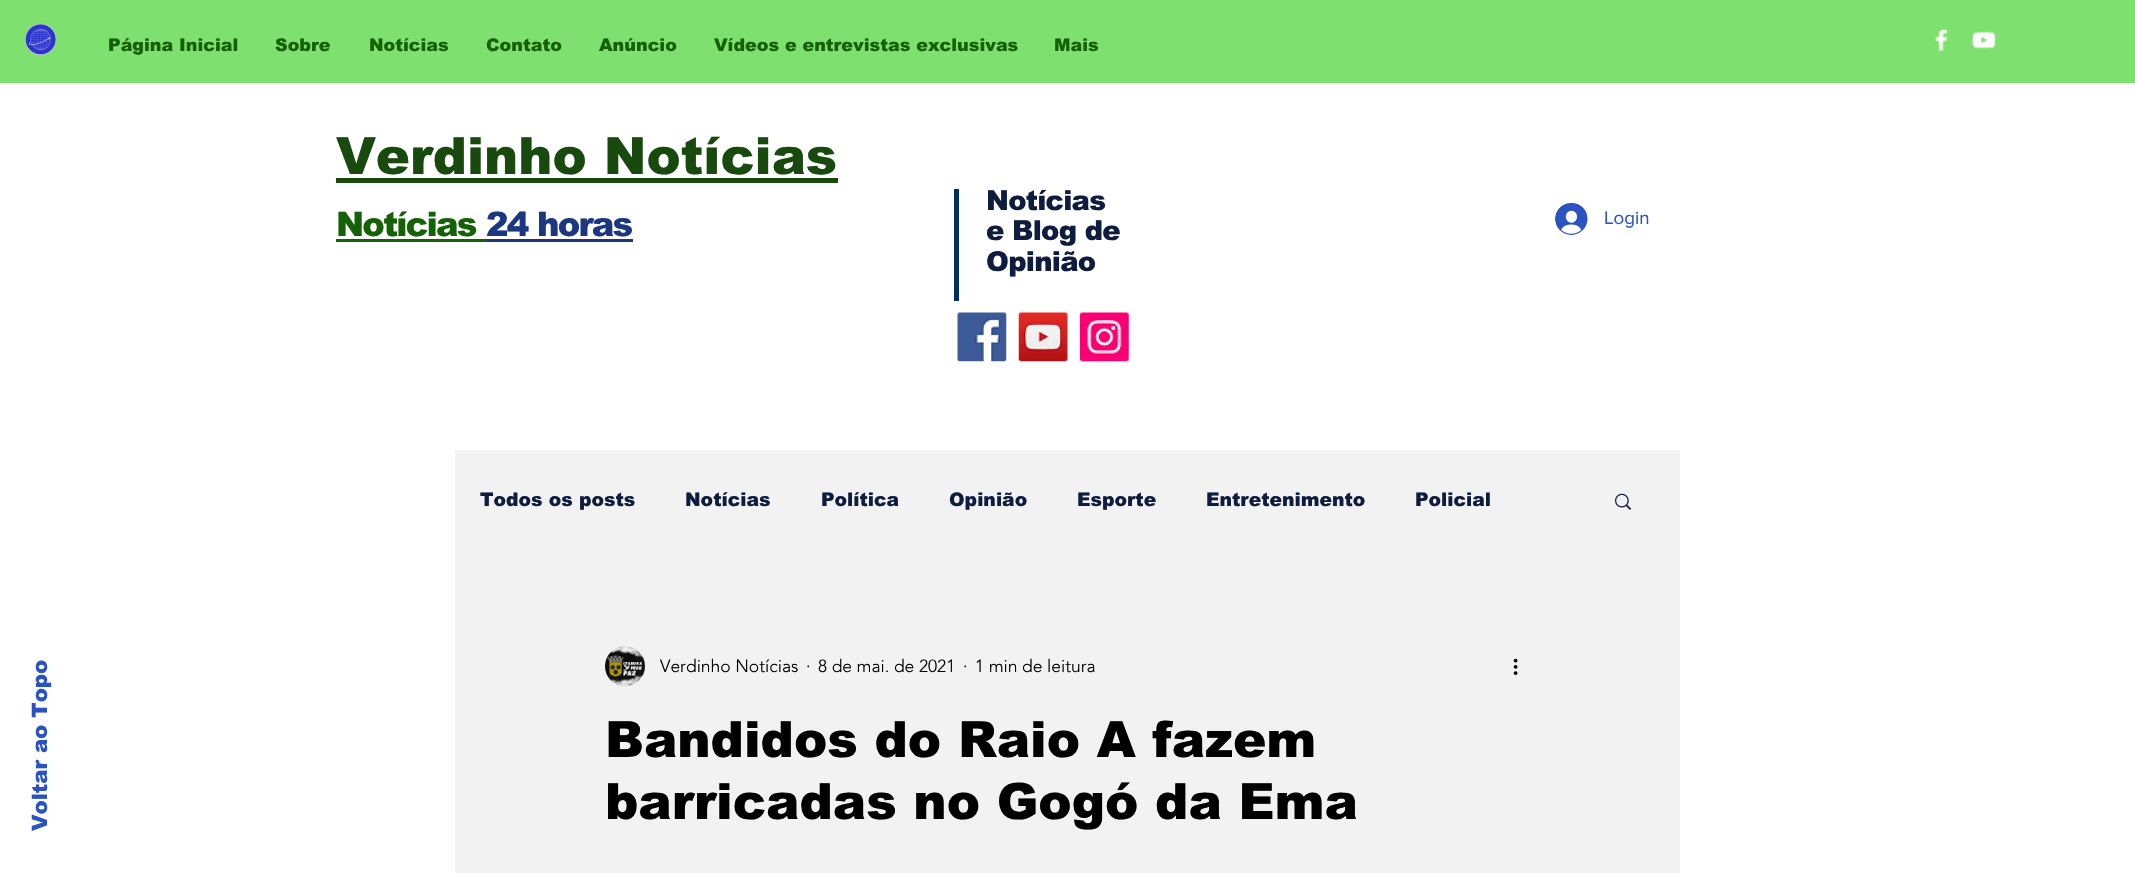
void draw(SkCanvas* canvas) {
	SkPaint fill;
	fill.setAntiAlias(true);
	auto makeFont = [&](const char* family, int weight, float size, bool italic = false) {
		SkFontStyle style(weight, SkFontStyle::kNormal_Width,
			italic ? SkFontStyle::kItalic_Slant : SkFontStyle::kUpright_Slant);
		SkFont result(fontMgr->matchFamilyStyle(family, style), size);
		result.setSubpixel(true);
		return result;
	};
	auto text = [&](const char* s, float x, float y, const SkFont& font) {
		canvas->drawString(s, x, y, font, fill);
	};
	auto spacedText = [&](const char* s, float x, float y, const SkFont& font, const SkPaint& ink, float letter, float word) {
		std::vector<SkGlyphID> glyphs(font.countText(s, strlen(s), SkTextEncoding::kUTF8));
		std::vector<float> xs(glyphs.size());
		font.textToGlyphs(s, strlen(s), SkTextEncoding::kUTF8, glyphs);
		font.getXPos(glyphs, xs, x);
		float extra = 0;
		for (size_t i = 0; i < glyphs.size(); i++) {
			xs[i] += extra;
			extra += letter + word * (glyphs[i] == font.unicharToGlyph(' '));
		}
		canvas->drawTextBlob(SkTextBlob::MakeFromPosHGlyphs(glyphs, xs, y, font), 0, 0, ink);
	};
	auto box = [&](float l, float t, float r, float b) {
		canvas->drawRect(SkRect::MakeLTRB(l, t, r, b), fill);
	};
	auto picture = [&](const char* path, float l, float t, float r, float b) {
		auto image = SkImages::DeferredFromEncodedData(SkData::MakeFromFileName(path));
		canvas->drawImageRect(image, SkRect::MakeLTRB(l, t, r, b), SkSamplingOptions());
	};
	canvas->clear(0xFFFFFFFF);
	fill.setColor(0xFF7EE06E);
	box(0, 0, 2135, 83);
	picture("image0.png", 25, 23, 57, 55);
	picture("image1.png", 1935, 28, 1948, 52);
	picture("image2.png", 1972, 31, 1996, 49);
	fill.setColor(0xFF194A0D);
	box(336, 178, 838, 183);
	fill.setColor(0xFF146107);
	box(336, 239, 486, 242);
	fill.setColor(0xFF1C3781);
	box(486, 239, 633, 242);
	fill.setColor(0xFF002E5D);
	box(954, 189, 959, 301);
	picture("image3.png", 957, 312, 1007, 362);
	picture("image4.png", 1018, 312, 1068, 362);
	picture("image5.png", 1080, 312, 1129, 362);
	picture("image6.png", 1555, 203, 1588, 235);
	fill.setColor(0xFFF2F2F2);
	box(455, 450, 1680, 873);
	picture("image7.png", 1615, 493, 1632, 510);
	picture("image8.png", 605, 646, 645, 686);
	picture("image9.png", 1513, 658, 1518, 675);
	auto font1 = makeFont("arial", 900, 17.5f);
	fill.setColor(0xFF146107);
	text("Página Inicial", 108, 51, font1);
	text("Sobre", 275, 51, font1);
	text("Notícias", 369, 51, font1);
	text("Contato", 486, 51, font1);
	text("Anúncio", 599, 51, font1);
	text("Vídeos e entrevistas exclusivas", 714, 51, font1);
	text("Mais", 1054, 51, font1);
	auto font2 = makeFont("arial", 900, 51.25f);
	fill.setColor(0xFF194A0D);
	text("Verdinho Notícias", 336, 174, font2);
	auto font3 = makeFont("arial", 900, 33.75f);
	fill.setColor(0xFF146107);
	spacedText("Notícias", 336, 236, font3, fill, -1.75f, 0);
	fill.setColor(0xFF1C3781);
	spacedText("24 horas", 486, 236, font3, fill, -1.75f, 0);
	auto font4 = makeFont("arial", 900, 27.5f);
	fill.setColor(0xFF0E1C40);
	spacedText("Notícias", 986, 210, font4, fill, -0.75f, 0);
	spacedText("e Blog de", 986, 240, font4, fill, -0.75f, 0);
	spacedText("Opinião", 986, 271, font4, fill, -0.75f, 0);
	auto font5 = makeFont("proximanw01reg", 400, 18.75f);
	fill.setColor(0xFF2A53C1);
	text("Login", 1604, 224, font5);
	auto font6 = makeFont("arial", 900, 21.25f);
	canvas->save();
	canvas->rotate(-90, 47, 831);
	text("Voltar ao Topo", 47, 831, font6);
	canvas->restore();
	auto font7 = makeFont("arial", 900, 18.75f);
	fill.setColor(0xFF0E1C40);
	text("Todos os posts", 480, 506, font7);
	text("Notícias", 685, 506, font7);
	text("Política", 821, 506, font7);
	text("Opinião", 949, 506, font7);
	text("Esporte", 1077, 506, font7);
	text("Entretenimento", 1206, 506, font7);
	text("Policial", 1415, 506, font7);
	auto font8 = makeFont("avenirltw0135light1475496", 300, 17.5f);
	fill.setColor(0xFF000000);
	text("Verdinho Notícias", 660, 672, font8);
	text("·", 806, 672, font8);
	text("8 de mai. de 2021", 818, 672, font8);
	text("·", 963, 672, font8);
	text("1 min de leitura", 975, 672, font8);
	auto font9 = makeFont("arial", 900, 50);
	text("Bandidos do Raio A fazem", 605, 757, font9);
	text("barricadas no Gogó da Ema", 605, 819, font9);
}
